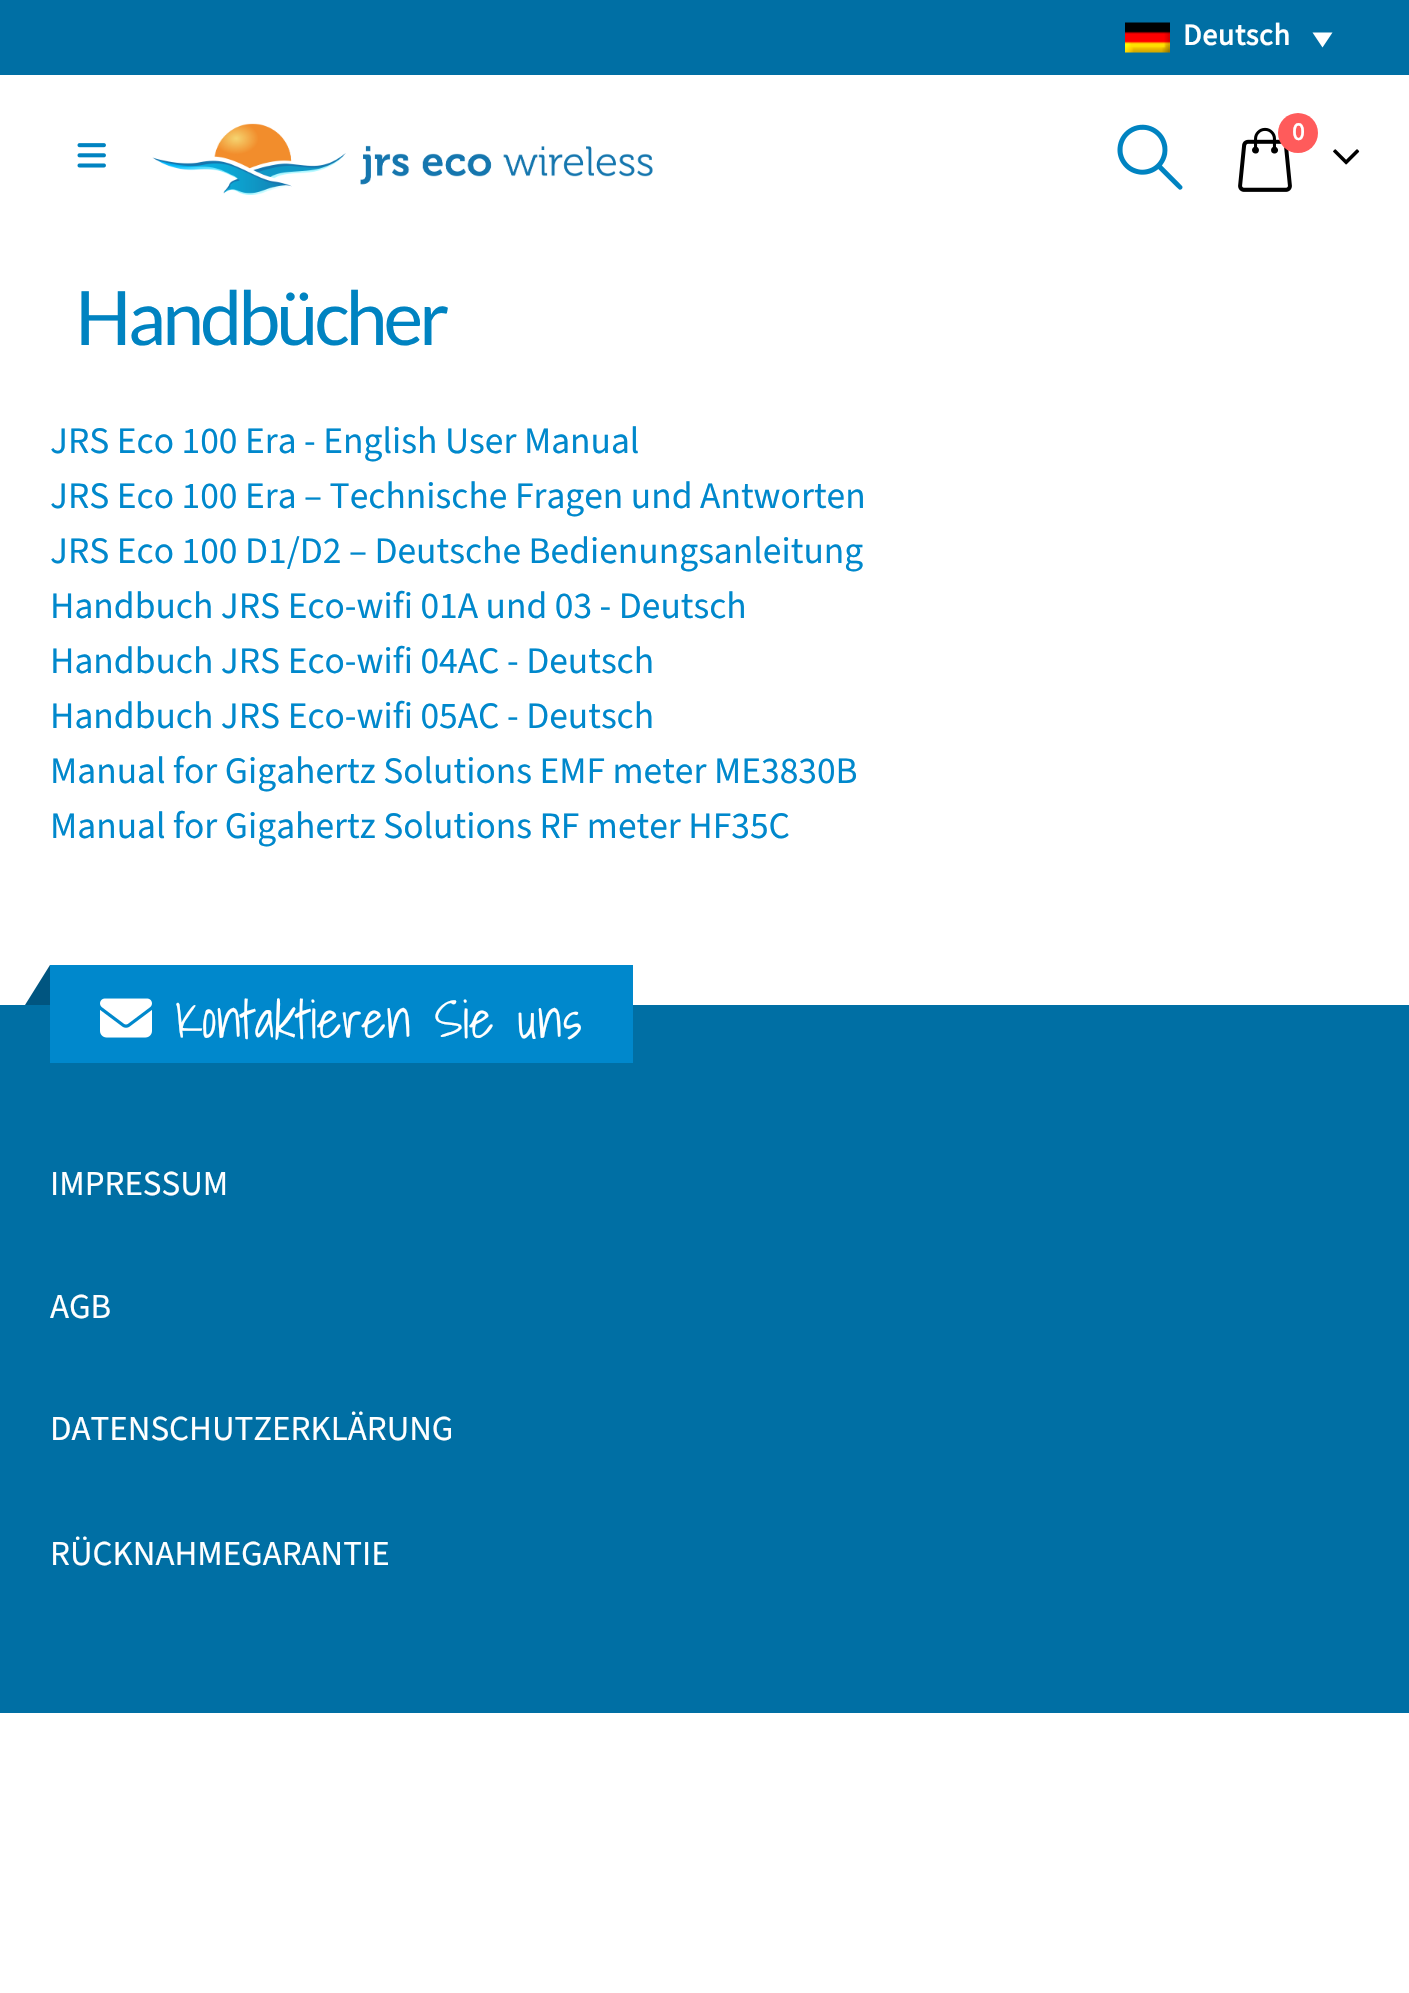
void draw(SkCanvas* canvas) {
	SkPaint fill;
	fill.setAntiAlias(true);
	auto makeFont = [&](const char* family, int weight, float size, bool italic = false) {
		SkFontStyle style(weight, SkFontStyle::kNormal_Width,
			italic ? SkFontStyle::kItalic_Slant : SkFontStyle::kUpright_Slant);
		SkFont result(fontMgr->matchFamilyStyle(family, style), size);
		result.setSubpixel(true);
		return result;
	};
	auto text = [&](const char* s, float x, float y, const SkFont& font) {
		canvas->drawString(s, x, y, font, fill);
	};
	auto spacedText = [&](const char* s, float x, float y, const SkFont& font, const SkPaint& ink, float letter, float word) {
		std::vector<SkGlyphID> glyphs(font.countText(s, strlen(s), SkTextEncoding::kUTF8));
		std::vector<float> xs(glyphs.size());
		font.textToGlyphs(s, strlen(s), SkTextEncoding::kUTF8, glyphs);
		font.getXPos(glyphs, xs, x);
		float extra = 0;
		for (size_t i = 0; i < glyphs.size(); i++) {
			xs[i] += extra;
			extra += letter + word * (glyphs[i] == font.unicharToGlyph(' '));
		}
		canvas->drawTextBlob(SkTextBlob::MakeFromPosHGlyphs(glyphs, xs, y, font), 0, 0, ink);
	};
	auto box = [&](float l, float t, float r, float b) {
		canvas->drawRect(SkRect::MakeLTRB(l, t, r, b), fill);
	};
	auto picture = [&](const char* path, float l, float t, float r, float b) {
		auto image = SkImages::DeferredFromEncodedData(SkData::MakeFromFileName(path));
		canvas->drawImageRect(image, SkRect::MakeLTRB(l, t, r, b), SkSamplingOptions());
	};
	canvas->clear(0xFFFFFFFF);
	fill.setColor(0xFF006FA4);
	box(0, 0, 1409, 75);
	picture("image0.png", 1125, 22, 1170, 53);
	fill.setColor(0xFFFFFFFF);
	canvas->drawPath(SkPathBuilder().moveTo(1312.5f, 32.5f).lineTo(1332.5f, 32.5f).lineTo(1322.5f, 47.5f).close().detach(), fill);
	picture("image1.png", 77, 143, 106, 168);
	picture("image2.png", 152, 123, 653, 195);
	picture("image3.png", 1117, 124, 1183, 190);
	picture("image4.png", 1238, 127, 1292, 192);
	fill.setColor(0xFFFF5B5B);
	canvas->drawCircle(1298, 133, 20, fill);
	picture("image5.png", 1333, 149, 1360, 165);
	fill.setColor(0xFF006FA4);
	box(0, 1005, 1409, 1713);
	fill.setColor(0xFF0088CC);
	box(50, 965, 633, 1063);
	fill.setColor(0xFF005580);
	canvas->drawPath(SkPathBuilder().moveTo(50, 965).lineTo(50, 1005).lineTo(25, 1005).close().detach(), fill);
	picture("image6.png", 100, 998, 152, 1038);
	auto font1 = makeFont("Source Sans 3", 700, 30);
	fill.setColor(0xFFFFFFFF);
	spacedText("Deutsch", 1183, 45, font1, fill, 0.75f, 0);
	auto font2 = makeFont("Source Sans 3", 700, 25);
	text("0", 1292, 140, font2);
	auto font3 = makeFont("Lato", 400, 75);
	fill.setColor(0xFF0083C1);
	spacedText("Handbücher", 75, 345, font3, fill, -3.75f, 0);
	auto font4 = makeFont("Source Sans 3", 400, 37.5f);
	fill.setColor(0xFF0088CC);
	text("JRS Eco 100 Era - English User Manual", 50, 453, font4);
	text("JRS Eco 100 Era – Technische Fragen und Antworten", 50, 508, font4);
	text("JRS Eco 100 D1/D2 – Deutsche Bedienungsanleitung", 50, 563, font4);
	text("Handbuch JRS Eco-wifi 01A und 03 - Deutsch", 50, 618, font4);
	text("Handbuch JRS Eco-wifi 04AC - Deutsch", 50, 673, font4);
	text("Handbuch JRS Eco-wifi 05AC - Deutsch", 50, 728, font4);
	text("Manual for Gigahertz Solutions EMF meter ME3830B", 50, 783, font4);
	text("Manual for Gigahertz Solutions RF meter HF35C", 50, 838, font4);
	auto font5 = makeFont("Shadows Into Light", 300, 52);
	fill.setColor(0xFFFFFFFF);
	text("Kontaktieren Sie uns", 175, 1038, font5);
	auto font6 = makeFont("Source Sans 3", 400, 35);
	text("IMPRESSUM", 50, 1195, font6);
	text("AGB", 50, 1318, font6);
	text("DATENSCHUTZERKLÄRUNG", 50, 1440, font6);
	text("RÜCKNAHMEGARANTIE", 50, 1565, font6);
}
